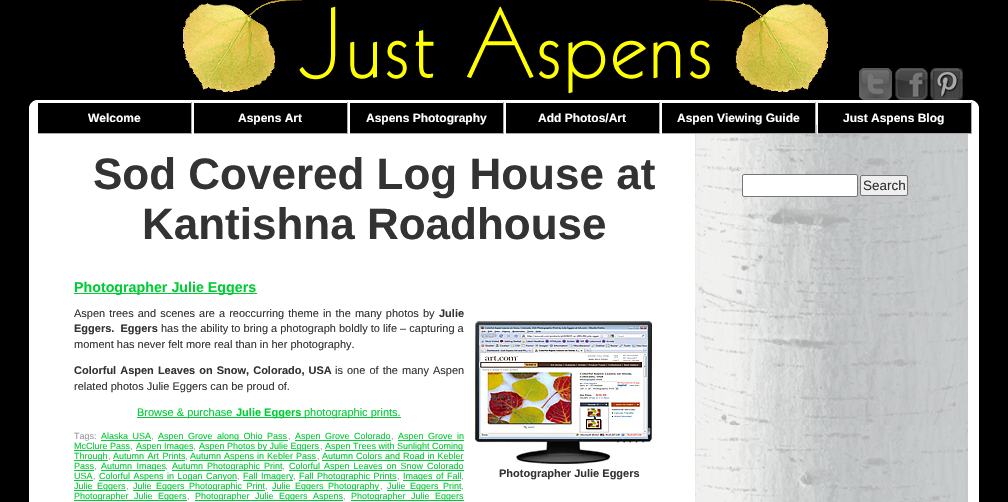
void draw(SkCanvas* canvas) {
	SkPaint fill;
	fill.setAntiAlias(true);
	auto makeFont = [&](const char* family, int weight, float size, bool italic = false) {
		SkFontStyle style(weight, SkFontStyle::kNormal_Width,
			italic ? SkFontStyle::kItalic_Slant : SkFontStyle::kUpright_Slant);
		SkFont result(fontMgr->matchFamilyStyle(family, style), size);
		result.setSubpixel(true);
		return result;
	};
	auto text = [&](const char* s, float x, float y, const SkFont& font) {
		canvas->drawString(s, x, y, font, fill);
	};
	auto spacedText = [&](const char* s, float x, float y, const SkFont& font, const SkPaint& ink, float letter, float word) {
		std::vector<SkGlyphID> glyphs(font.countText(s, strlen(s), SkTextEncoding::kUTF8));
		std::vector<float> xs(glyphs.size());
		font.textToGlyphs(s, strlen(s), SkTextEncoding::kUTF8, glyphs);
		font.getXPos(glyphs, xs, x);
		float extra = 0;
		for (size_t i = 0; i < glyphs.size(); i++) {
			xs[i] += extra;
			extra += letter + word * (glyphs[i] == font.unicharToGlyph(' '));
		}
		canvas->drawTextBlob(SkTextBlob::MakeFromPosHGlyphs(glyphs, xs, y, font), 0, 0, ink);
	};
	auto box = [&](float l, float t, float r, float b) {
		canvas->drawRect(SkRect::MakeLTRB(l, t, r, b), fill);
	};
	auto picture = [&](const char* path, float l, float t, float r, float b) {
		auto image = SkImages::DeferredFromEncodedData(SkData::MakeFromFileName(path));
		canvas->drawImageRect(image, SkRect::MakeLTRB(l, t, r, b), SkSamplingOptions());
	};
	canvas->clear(0xFF000000);
	fill.setColor(0xFFFFFFFF);
	box(29, 107, 979, 502);
	picture("image0.png", 29, 100, 979, 107);
	picture("image1.png", 183, 0, 963, 100);
	fill.setColor(0xFF000000);
	box(38, 103, 191, 133);
	fill.setColor(0xFFAAAAAA);
	box(191, 102, 192, 134);
	box(37, 133, 192, 134);
	fill.setColor(0xFFFFFFFF);
	box(37, 133, 38, 134);
	fill.setColor(0xFF000000);
	box(194, 103, 347, 133);
	fill.setColor(0xFFAAAAAA);
	box(347, 102, 348, 134);
	box(193, 133, 348, 134);
	fill.setColor(0xFFFFFFFF);
	box(193, 133, 194, 134);
	fill.setColor(0xFF000000);
	box(350, 103, 503, 133);
	fill.setColor(0xFFAAAAAA);
	box(503, 102, 504, 134);
	box(349, 133, 504, 134);
	fill.setColor(0xFFFFFFFF);
	box(349, 133, 350, 134);
	fill.setColor(0xFF000000);
	box(506, 103, 659, 133);
	fill.setColor(0xFFAAAAAA);
	box(659, 102, 660, 134);
	box(505, 133, 660, 134);
	fill.setColor(0xFFFFFFFF);
	box(505, 133, 506, 134);
	picture("image2.png", 695, 125, 968, 502);
	fill.setColor(0xFF000000);
	box(662, 103, 815, 133);
	fill.setColor(0xFFAAAAAA);
	box(815, 102, 816, 134);
	box(661, 133, 816, 134);
	fill.setColor(0xFFFFFFFF);
	box(661, 133, 662, 134);
	fill.setColor(0xFF000000);
	box(818, 103, 971, 133);
	fill.setColor(0xFFAAAAAA);
	box(971, 102, 972, 134);
	box(817, 133, 972, 134);
	fill.setColor(0xFFFFFFFF);
	box(817, 125, 818, 134);
	fill.setColor(0xFF00CC33);
	box(74, 293, 257, 294);
	box(137, 417, 401, 418);
	picture("image3.png", 474, 320, 654, 464);
	box(101, 440, 151, 441);
	box(158, 440, 288, 441);
	box(295, 440, 391, 441);
	box(398, 440, 464, 441);
	box(74, 450, 130, 451);
	box(136, 450, 193, 451);
	box(199, 450, 320, 451);
	box(325, 450, 464, 451);
	box(74, 460, 108, 461);
	box(113, 460, 185, 461);
	box(190, 460, 317, 461);
	box(322, 460, 464, 461);
	box(74, 470, 94, 471);
	box(101, 470, 165, 471);
	box(172, 470, 282, 471);
	box(289, 470, 464, 471);
	box(74, 480, 93, 481);
	box(99, 480, 237, 481);
	box(243, 480, 293, 481);
	box(299, 480, 397, 481);
	box(403, 480, 461, 481);
	box(74, 490, 126, 491);
	box(133, 490, 265, 491);
	box(272, 490, 380, 491);
	box(387, 490, 461, 491);
	box(74, 500, 187, 501);
	box(195, 500, 343, 501);
	box(351, 500, 464, 501);
	fill.setColor(0xFFFFFFFF);
	canvas->drawRoundRect(SkRect::MakeLTRB(742.5f, 174.5f, 857.5f, 196.5f), 1.5f, 1.5f, fill);
	fill.setStyle(SkPaint::kStroke_Style);
	fill.setStrokeWidth(1);
	fill.setColor(0xFF767676);
	canvas->drawRoundRect(SkRect::MakeLTRB(742.5f, 174.5f, 857.5f, 196.5f), 1.5f, 1.5f, fill);
	fill.setStyle(SkPaint::kFill_Style);
	fill.setColor(0xFFEFEFEF);
	canvas->drawRoundRect(SkRect::MakeLTRB(860.5f, 175.5f, 907.5f, 195.5f), 1.5f, 1.5f, fill);
	fill.setStyle(SkPaint::kStroke_Style);
	fill.setColor(0xFF767676);
	canvas->drawRoundRect(SkRect::MakeLTRB(860.5f, 175.5f, 907.5f, 195.5f), 1.5f, 1.5f, fill);
	auto font1 = makeFont("Liberation Sans", 700, 12);
	fill.setStyle(SkPaint::kFill_Style);
	fill.setColor(0xFFFFFFFF);
	text("Welcome", 88, 122, font1);
	text("Aspens Art", 238, 122, font1);
	text("Aspens Photography", 366, 122, font1);
	text("Add Photos/Art", 538, 122, font1);
	text("Aspen Viewing Guide", 677, 122, font1);
	text("Just Aspens Blog", 843, 122, font1);
	auto font2 = makeFont("Liberation Sans", 700, 44);
	fill.setColor(0xFF333333);
	text("Sod Covered Log House at", 93, 189, font2);
	text("Kantishna Roadhouse", 142, 239, font2);
	auto font3 = makeFont("Liberation Sans", 700, 14.25f);
	fill.setColor(0xFF00CC33);
	text("Photographer Julie Eggers", 74, 292, font3);
	auto font4 = makeFont("Liberation Sans", 400, 11);
	fill.setColor(0xFF333333);
	spacedText("Aspen trees and scenes are a reoccurring theme in the many photos by", 74, 317, font4, fill, 0, 1);
	auto font5 = makeFont("Liberation Sans", 700, 11);
	text("Julie", 439, 317, font5);
	text("Eggers.  Eggers", 74, 332, font5);
	text("has the ability to bring a photograph boldly to life – capturing a", 161, 332, font4);
	text("moment has never felt more real than in her photography.", 74, 348, font4);
	spacedText("Colorful Aspen Leaves on Snow, Colorado, USA", 74, 374, font5, fill, 0, 1);
	spacedText("is one of the many Aspen", 335, 374, font4, fill, 0, 1);
	text("related photos Julie Eggers can be proud of.", 74, 390, font4);
	fill.setColor(0xFF00CC33);
	text("Browse & purchase", 137, 416, font4);
	text("Julie Eggers", 236, 416, font5);
	text("photographic prints.", 304, 416, font4);
	fill.setColor(0xFF333333);
	text("Photographer Julie Eggers", 499, 477, font5);
	auto font6 = makeFont("Liberation Sans", 400, 9);
	fill.setColor(0xFF999999);
	text("Tags:", 74, 439, font6);
	fill.setColor(0xFF00CC33);
	spacedText("Alaska USA", 101, 439, font6, fill, 0, 2);
	fill.setColor(0xFF999999);
	text(",", 151, 439, font6);
	fill.setColor(0xFF00CC33);
	spacedText("Aspen Grove along Ohio Pass", 158, 439, font6, fill, 0, 2);
	fill.setColor(0xFF999999);
	text(",", 288, 439, font6);
	fill.setColor(0xFF00CC33);
	spacedText("Aspen Grove Colorado", 295, 439, font6, fill, 0, 2);
	fill.setColor(0xFF999999);
	text(",", 391, 439, font6);
	fill.setColor(0xFF00CC33);
	spacedText("Aspen Grove in", 398, 439, font6, fill, 0, 2);
	text("McClure Pass", 74, 449, font6);
	fill.setColor(0xFF999999);
	text(",", 130, 449, font6);
	fill.setColor(0xFF00CC33);
	text("Aspen Images", 136, 449, font6);
	fill.setColor(0xFF999999);
	text(",", 193, 449, font6);
	fill.setColor(0xFF00CC33);
	text("Aspen Photos by Julie Eggers", 199, 449, font6);
	fill.setColor(0xFF999999);
	text(",", 320, 449, font6);
	fill.setColor(0xFF00CC33);
	text("Aspen Trees with Sunlight Coming", 325, 449, font6);
	text("Through", 74, 459, font6);
	fill.setColor(0xFF999999);
	text(",", 108, 459, font6);
	fill.setColor(0xFF00CC33);
	spacedText("Autumn Art Prints", 113, 459, font6, fill, 0, 1);
	fill.setColor(0xFF999999);
	text(",", 185, 459, font6);
	fill.setColor(0xFF00CC33);
	spacedText("Autumn Aspens in Kebler Pass", 190, 459, font6, fill, 0, 0.5f);
	fill.setColor(0xFF999999);
	text(",", 317, 459, font6);
	fill.setColor(0xFF00CC33);
	spacedText("Autumn Colors and Road in Kebler", 322, 459, font6, fill, 0, 0.5f);
	text("Pass", 74, 469, font6);
	fill.setColor(0xFF999999);
	text(",", 94, 469, font6);
	fill.setColor(0xFF00CC33);
	spacedText("Autumn Images", 101, 469, font6, fill, 0, 2);
	fill.setColor(0xFF999999);
	text(",", 165, 469, font6);
	fill.setColor(0xFF00CC33);
	spacedText("Autumn Photographic Print", 172, 469, font6, fill, 0, 1.5f);
	fill.setColor(0xFF999999);
	text(",", 282, 469, font6);
	fill.setColor(0xFF00CC33);
	spacedText("Colorful Aspen Leaves on Snow Colorado", 289, 469, font6, fill, 0, 1.5f);
	text("USA", 74, 479, font6);
	fill.setColor(0xFF999999);
	text(",", 93, 479, font6);
	fill.setColor(0xFF00CC33);
	spacedText("Colorful Aspens in Logan Canyon", 99, 479, font6, fill, 0, 1);
	fill.setColor(0xFF999999);
	text(",", 237, 479, font6);
	fill.setColor(0xFF00CC33);
	spacedText("Fall Imagery", 243, 479, font6, fill, 0, 1);
	fill.setColor(0xFF999999);
	text(",", 293, 479, font6);
	fill.setColor(0xFF00CC33);
	spacedText("Fall Photographic Prints", 299, 479, font6, fill, 0, 1);
	fill.setColor(0xFF999999);
	text(",", 397, 479, font6);
	fill.setColor(0xFF00CC33);
	spacedText("Images of Fall", 403, 479, font6, fill, 0, 1);
	fill.setColor(0xFF999999);
	text(",", 461, 479, font6);
	fill.setColor(0xFF00CC33);
	spacedText("Julie Eggers", 74, 489, font6, fill, 0, 2);
	fill.setColor(0xFF999999);
	text(",", 126, 489, font6);
	fill.setColor(0xFF00CC33);
	spacedText("Julie Eggers Photographic Print", 133, 489, font6, fill, 0, 2);
	fill.setColor(0xFF999999);
	text(",", 265, 489, font6);
	fill.setColor(0xFF00CC33);
	spacedText("Julie Eggers Photography", 272, 489, font6, fill, 0, 2);
	fill.setColor(0xFF999999);
	text(",", 380, 489, font6);
	fill.setColor(0xFF00CC33);
	spacedText("Julie Eggers Print", 387, 489, font6, fill, 0, 2);
	fill.setColor(0xFF999999);
	text(",", 461, 489, font6);
	fill.setColor(0xFF00CC33);
	spacedText("Photographer Julie Eggers", 74, 499, font6, fill, 0, 3);
	fill.setColor(0xFF999999);
	text(",", 187, 499, font6);
	fill.setColor(0xFF00CC33);
	spacedText("Photographer Julie Eggers Aspens", 195, 499, font6, fill, 0, 3);
	fill.setColor(0xFF999999);
	text(",", 343, 499, font6);
	fill.setColor(0xFF00CC33);
	spacedText("Photographer Julie Eggers", 351, 499, font6, fill, 0, 3);
	auto font7 = makeFont("Liberation Sans", 400, 13.5f);
	fill.setColor(0xFF333333);
	text("Search", 863, 190, font7);
}
